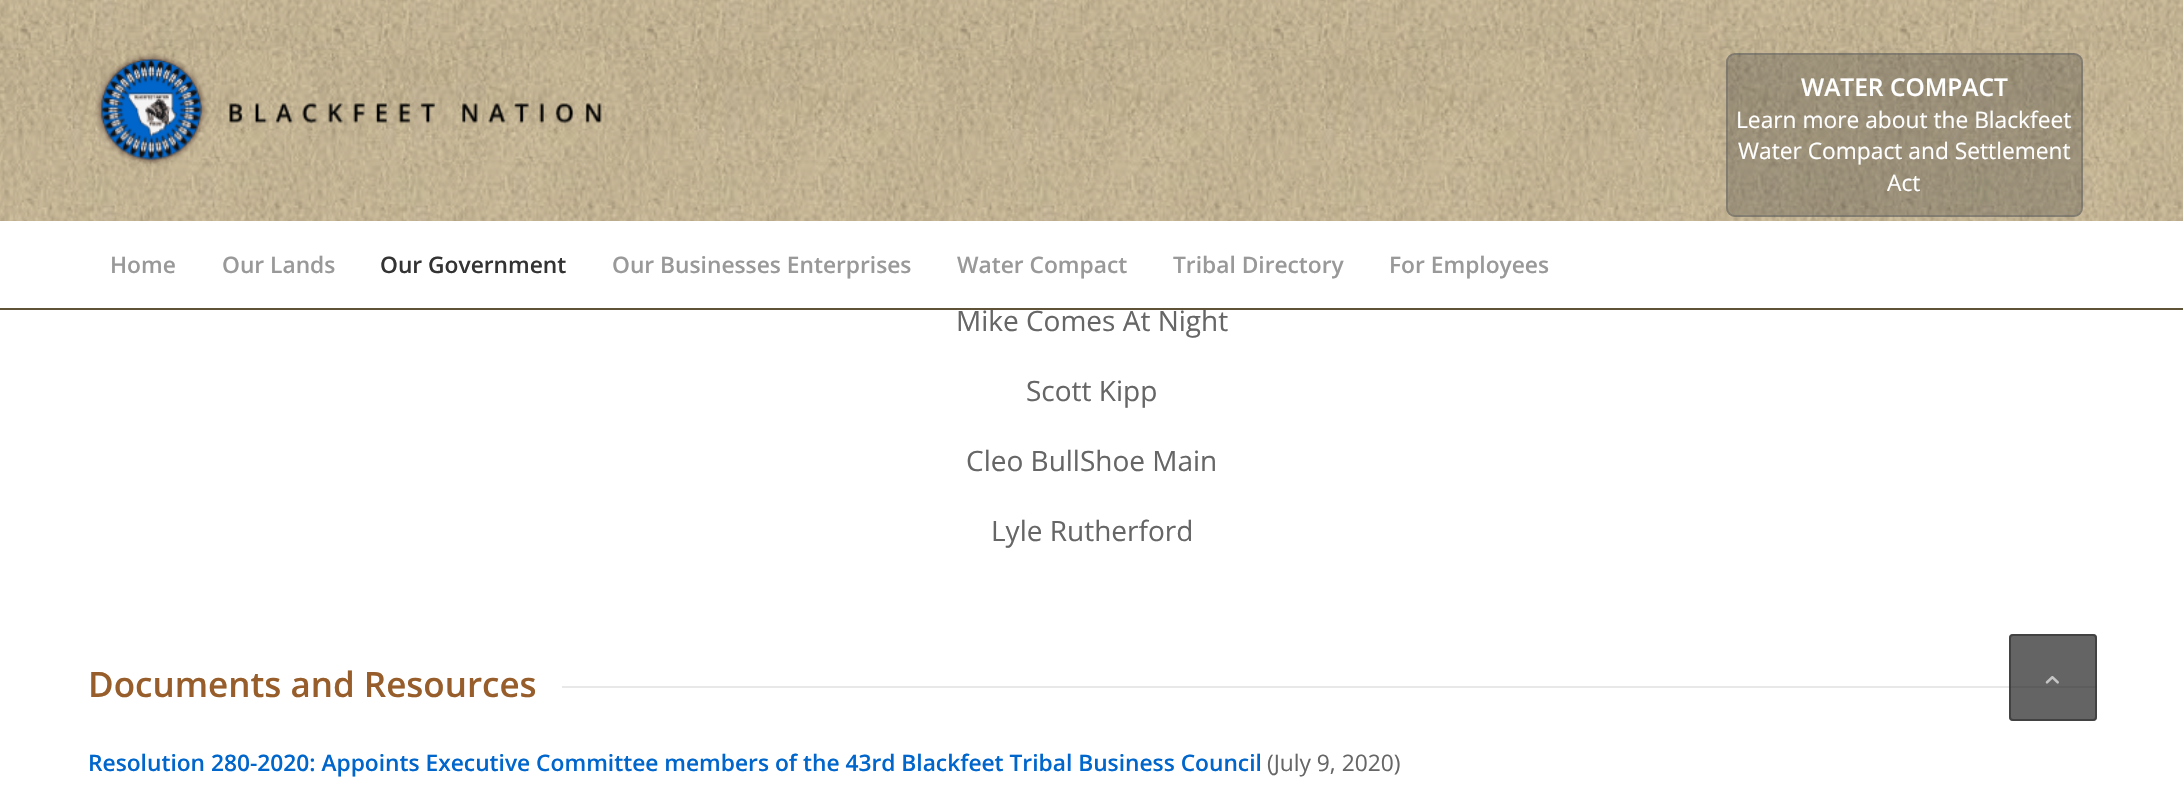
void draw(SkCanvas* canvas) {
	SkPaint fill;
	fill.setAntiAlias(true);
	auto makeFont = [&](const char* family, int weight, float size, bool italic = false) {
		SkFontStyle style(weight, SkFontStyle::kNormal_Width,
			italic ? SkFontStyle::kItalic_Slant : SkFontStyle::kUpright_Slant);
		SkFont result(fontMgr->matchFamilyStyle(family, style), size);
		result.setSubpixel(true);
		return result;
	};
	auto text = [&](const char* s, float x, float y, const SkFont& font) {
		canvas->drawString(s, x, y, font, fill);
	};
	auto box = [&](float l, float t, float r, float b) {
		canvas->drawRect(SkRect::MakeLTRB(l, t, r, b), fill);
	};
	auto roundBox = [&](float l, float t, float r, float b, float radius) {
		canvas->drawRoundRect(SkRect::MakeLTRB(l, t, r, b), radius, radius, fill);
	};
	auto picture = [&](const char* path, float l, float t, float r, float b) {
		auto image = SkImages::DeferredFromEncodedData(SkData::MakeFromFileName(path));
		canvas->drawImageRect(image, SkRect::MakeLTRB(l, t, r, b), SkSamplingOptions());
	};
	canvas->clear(0xFFFFFFFF);
	picture("image0.png", 0, 0, 2183, 221);
	picture("image1.png", 95, 53, 602, 166);
	fill.setColor(0x45333333);
	roundBox(1726, 53, 2083, 217, 9);
	fill.setStyle(SkPaint::kStroke_Style);
	fill.setStrokeWidth(2);
	fill.setColor(0x7D666666);
	canvas->drawRoundRect(SkRect::MakeLTRB(1727, 54, 2082, 216), 8, 8, fill);
	fill.setStyle(SkPaint::kFill_Style);
	fill.setColor(0xFFE8E8E8);
	box(562, 686, 2097, 688);
	fill.setColor(0xB3222222);
	roundBox(2009, 634, 2097, 721, 4);
	fill.setStyle(SkPaint::kStroke_Style);
	fill.setColor(0xB3333333);
	canvas->drawRoundRect(SkRect::MakeLTRB(2010, 635, 2096, 720), 3, 3, fill);
	picture("image2.png", 2045, 676, 2059, 684);
	auto font1 = makeFont("Open Sans", 600, 24.5f);
	fill.setStyle(SkPaint::kFill_Style);
	fill.setColor(0xFFFFFFFF);
	text("WATER COMPACT", 1801, 96, font1);
	auto font2 = makeFont("Open Sans", 400, 22.75f);
	text("Learn more about the Blackfeet", 1736, 128, font2);
	text("Water Compact and Settlement", 1738, 159, font2);
	text("Act", 1887, 191, font2);
	auto font3 = makeFont("Open Sans", 600, 22.75f);
	fill.setColor(0xFF999999);
	text("Home", 110, 273, font3);
	text("Our Lands", 222, 273, font3);
	fill.setColor(0xFF333333);
	text("Our Government", 380, 273, font3);
	fill.setColor(0xFF999999);
	text("Our Businesses Enterprises", 612, 273, font3);
	text("Water Compact", 957, 273, font3);
	text("Tribal Directory", 1173, 273, font3);
	text("For Employees", 1389, 273, font3);
	auto font4 = makeFont("Open Sans", 400, 28);
	fill.setColor(0xFF666666);
	text("Mike Comes At Night", 956, 331, font4);
	fill.setColor(0xFF5E5336);
	box(0, 308, 2183, 310);
	fill.setColor(0xFF666666);
	text("Scott Kipp", 1026, 401, font4);
	text("Cleo BullShoe Main", 966, 471, font4);
	text("Lyle Rutherford", 991, 541, font4);
	auto font5 = makeFont("Open Sans", 600, 35);
	fill.setColor(0xFF975E2B);
	text("Documents and Resources", 88, 697, font5);
	fill.setColor(0xFF0066CC);
	text("Resolution 280-2020: Appoints Executive Committee members of the 43rd Blackfeet Tribal Business Council", 88, 771, font3);
	fill.setColor(0xFF666666);
	text("(July 9, 2020)", 1267, 771, font2);
}
